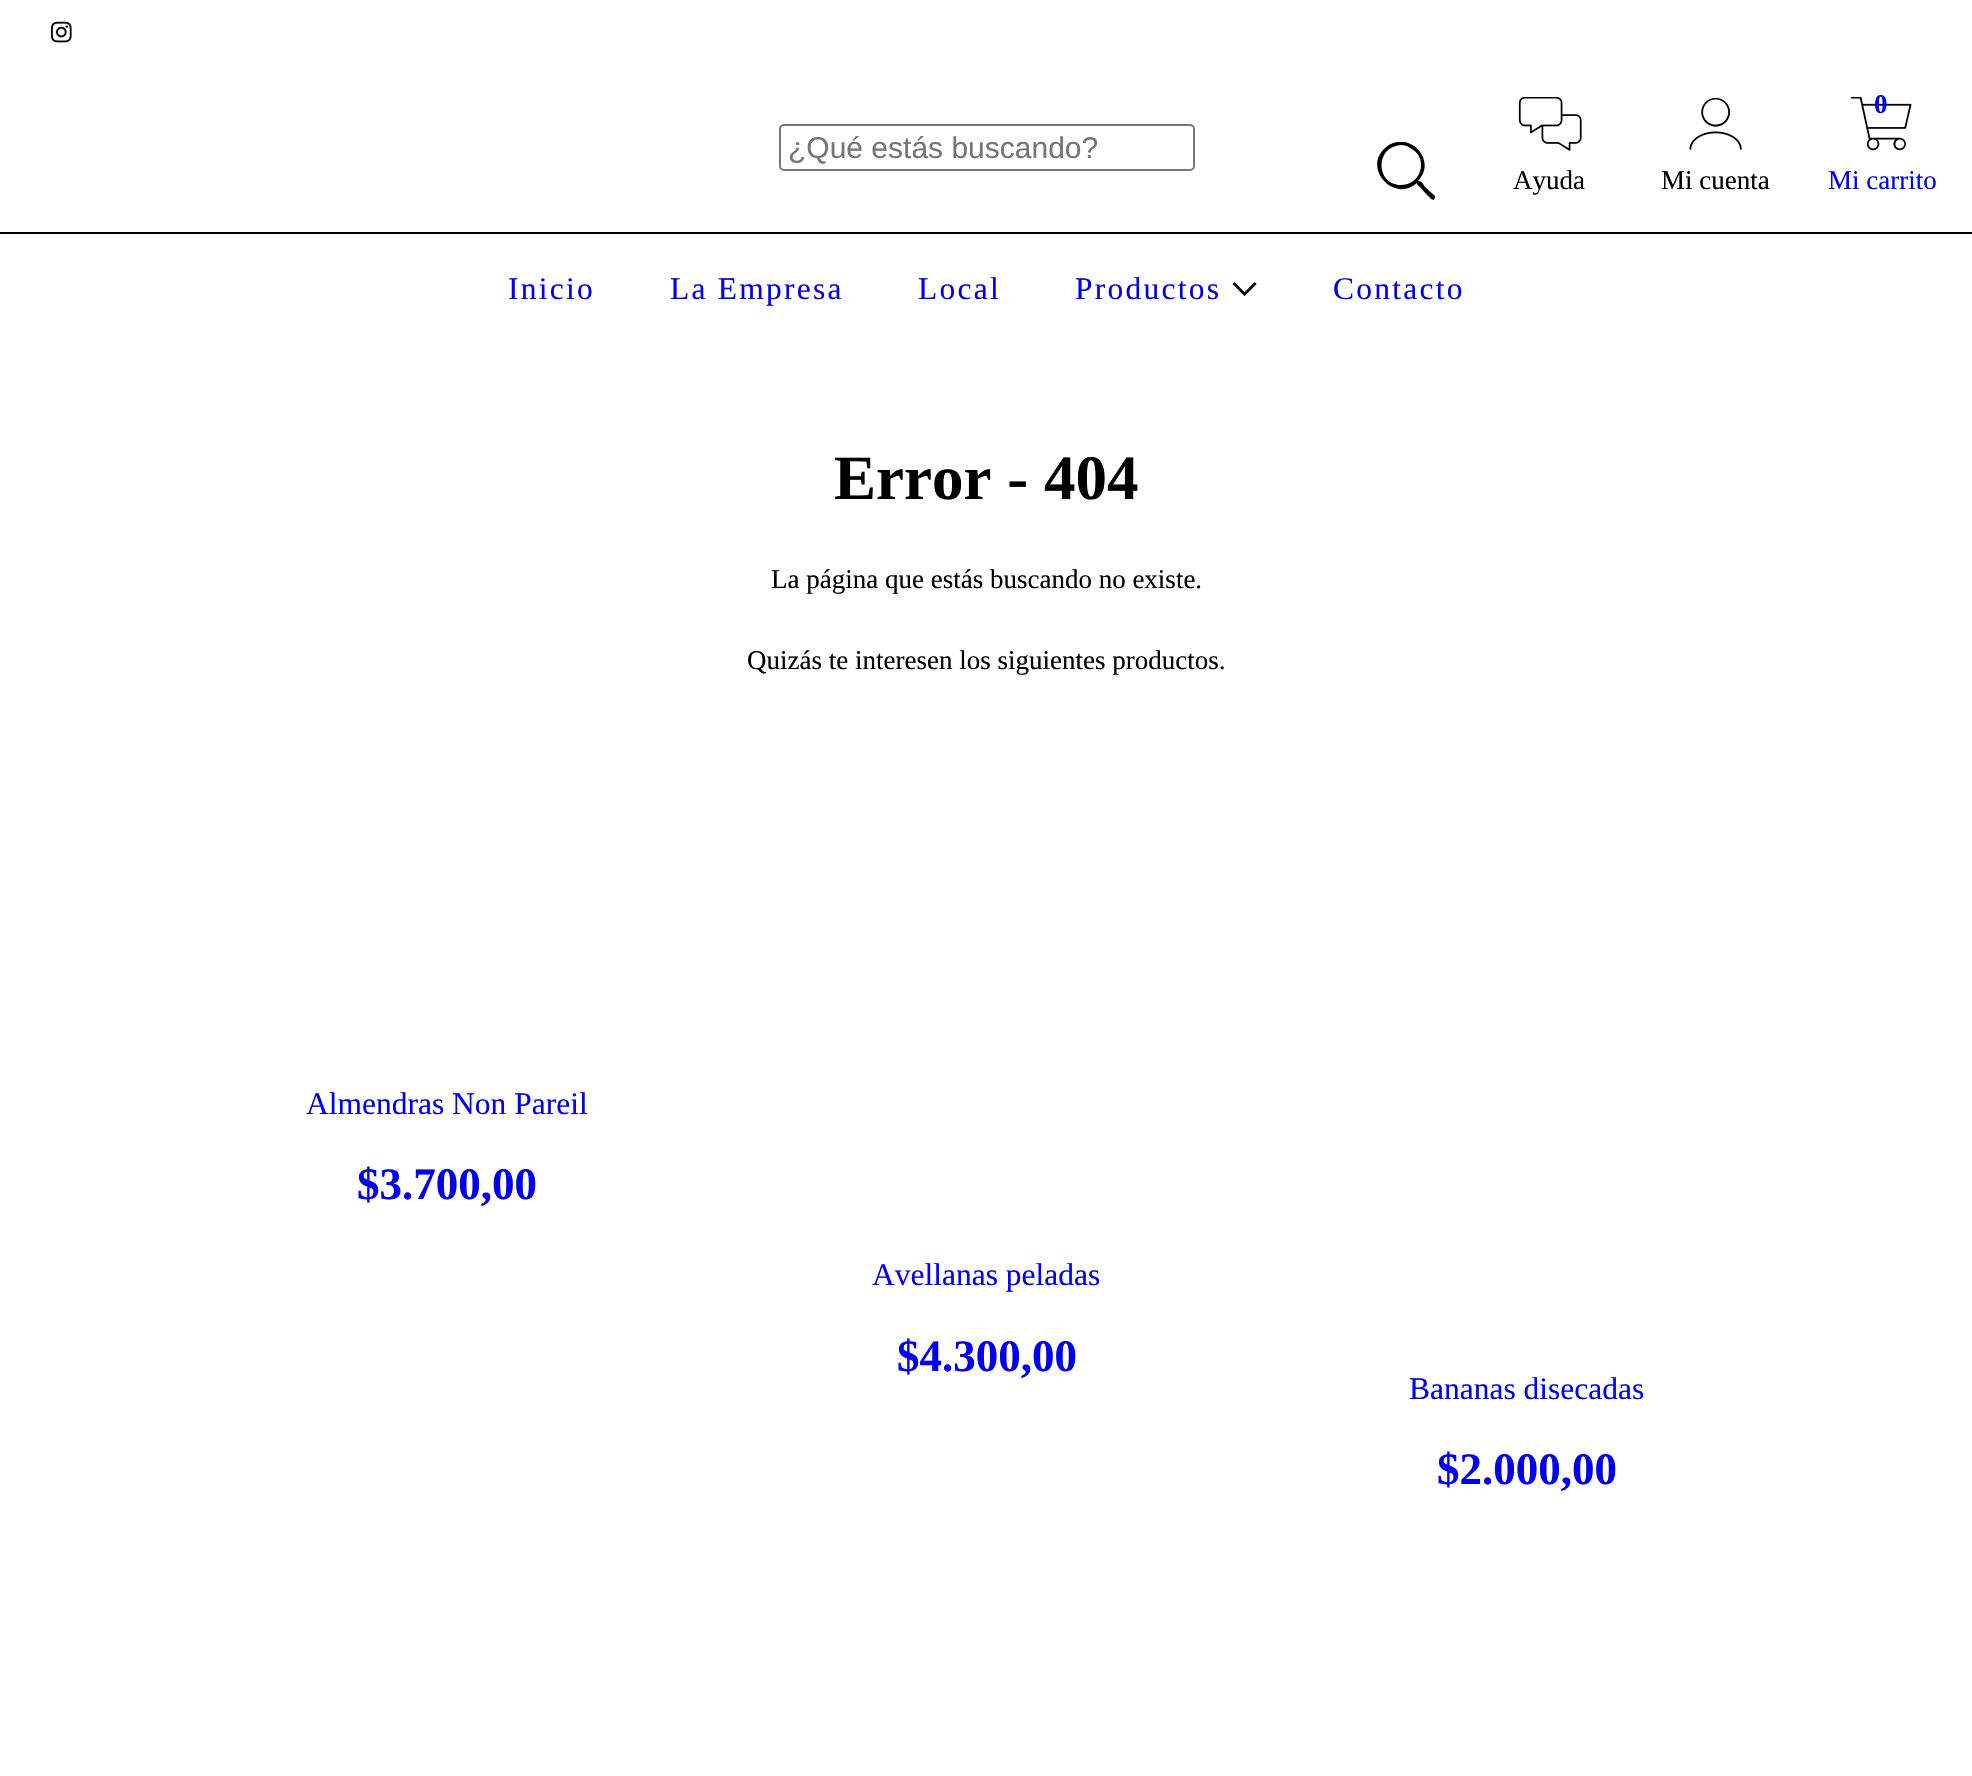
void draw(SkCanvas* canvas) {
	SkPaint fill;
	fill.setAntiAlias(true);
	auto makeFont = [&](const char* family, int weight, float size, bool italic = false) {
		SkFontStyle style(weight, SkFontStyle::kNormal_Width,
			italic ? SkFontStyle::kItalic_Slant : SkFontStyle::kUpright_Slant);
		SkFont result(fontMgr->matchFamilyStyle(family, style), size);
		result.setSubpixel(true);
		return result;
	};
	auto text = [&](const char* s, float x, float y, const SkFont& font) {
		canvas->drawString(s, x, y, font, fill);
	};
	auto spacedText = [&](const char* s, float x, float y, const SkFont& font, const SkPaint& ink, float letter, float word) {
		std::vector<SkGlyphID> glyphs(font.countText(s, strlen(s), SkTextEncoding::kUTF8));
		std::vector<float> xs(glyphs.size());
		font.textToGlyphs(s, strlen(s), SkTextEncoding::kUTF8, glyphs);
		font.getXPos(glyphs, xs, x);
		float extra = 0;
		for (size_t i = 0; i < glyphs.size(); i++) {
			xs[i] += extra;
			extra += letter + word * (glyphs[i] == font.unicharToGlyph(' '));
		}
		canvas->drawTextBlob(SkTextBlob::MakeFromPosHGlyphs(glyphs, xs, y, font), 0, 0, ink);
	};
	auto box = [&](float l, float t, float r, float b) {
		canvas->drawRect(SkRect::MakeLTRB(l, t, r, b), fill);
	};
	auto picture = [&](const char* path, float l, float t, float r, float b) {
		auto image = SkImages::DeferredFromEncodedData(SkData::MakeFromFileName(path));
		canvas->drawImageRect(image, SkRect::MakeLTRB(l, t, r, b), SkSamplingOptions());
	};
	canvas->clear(0xFFFFFFFF);
	picture("image0.png", 51, 21, 72, 43);
	fill.setStyle(SkPaint::kStroke_Style);
	fill.setStrokeWidth(2);
	fill.setColor(0xFF767676);
	canvas->drawRoundRect(SkRect::MakeLTRB(780, 125, 1194, 170), 4, 4, fill);
	canvas->save();
	canvas->clipRect(SkRect::MakeLTRB(1377, 142, 1437, 202));
	fill.setStyle(SkPaint::kFill_Style);
	fill.setColor(0xFF000000);
	canvas->drawPath(SkPathBuilder().moveTo(1435, 196).lineTo(1425, 187).cubicTo(1423, 184, 1422, 181, 1418, 181).cubicTo(1439, 159, 1406, 127, 1384, 149).cubicTo(1363, 170, 1395, 203, 1417, 183).cubicTo(1417, 185, 1418, 185, 1420, 187).lineTo(1427, 195).cubicTo(1429, 196, 1433, 203, 1435, 198).close().moveTo(1401, 185).cubicTo(1376, 185, 1374, 147, 1401, 145).cubicTo(1404, 145, 1408, 146, 1410, 148).cubicTo(1429, 157, 1422, 185, 1401, 185).close().detach(), fill);
	canvas->restore();
	picture("image1.png", 1518, 97, 1582, 151);
	picture("image2.png", 1689, 97, 1742, 150);
	picture("image3.png", 1850, 97, 1912, 151);
	box(0, 232, 1972, 234);
	picture("image4.png", 1232, 282, 1257, 296);
	auto font1 = makeFont("Liberation Sans", 400, 30);
	fill.setColor(0xFF757575);
	text("¿Qué estás buscando?", 788, 158, font1);
	auto font2 = makeFont("Liberation Serif", 400, 27);
	fill.setColor(0xFF000000);
	text("Ayuda", 1513, 189, font2);
	text("Mi cuenta", 1661, 189, font2);
	auto font3 = makeFont("Liberation Serif", 700, 27);
	fill.setColor(0xFF0000EE);
	text("0", 1874, 113, font3);
	text("Mi carrito", 1828, 189, font2);
	auto font4 = makeFont("Liberation Serif", 400, 31.5f);
	spacedText("Inicio", 508, 299, font4, fill, 2.25f, 0);
	spacedText("La Empresa", 670, 299, font4, fill, 2.25f, 0);
	spacedText("Local", 918, 299, font4, fill, 2.25f, 0);
	spacedText("Productos", 1075, 299, font4, fill, 2.25f, 0);
	spacedText("Contacto", 1333, 299, font4, fill, 2.25f, 0);
	auto font5 = makeFont("Liberation Serif", 700, 63);
	fill.setColor(0xFF000000);
	text("Error - 404", 834, 499, font5);
	text("La página que estás buscando no existe.", 771, 588, font2);
	text("Quizás te interesen los siguientes productos.", 747, 669, font2);
	fill.setColor(0xFF0000EE);
	text("Almendras Non Pareil", 306, 1114, font4);
	auto font6 = makeFont("Liberation Serif", 700, 45);
	text("$3.700,00", 357, 1199, font6);
	text("Avellanas peladas", 872, 1285, font4);
	text("$4.300,00", 897, 1371, font6);
	text("Bananas disecadas", 1409, 1399, font4);
	text("$2.000,00", 1437, 1484, font6);
}
